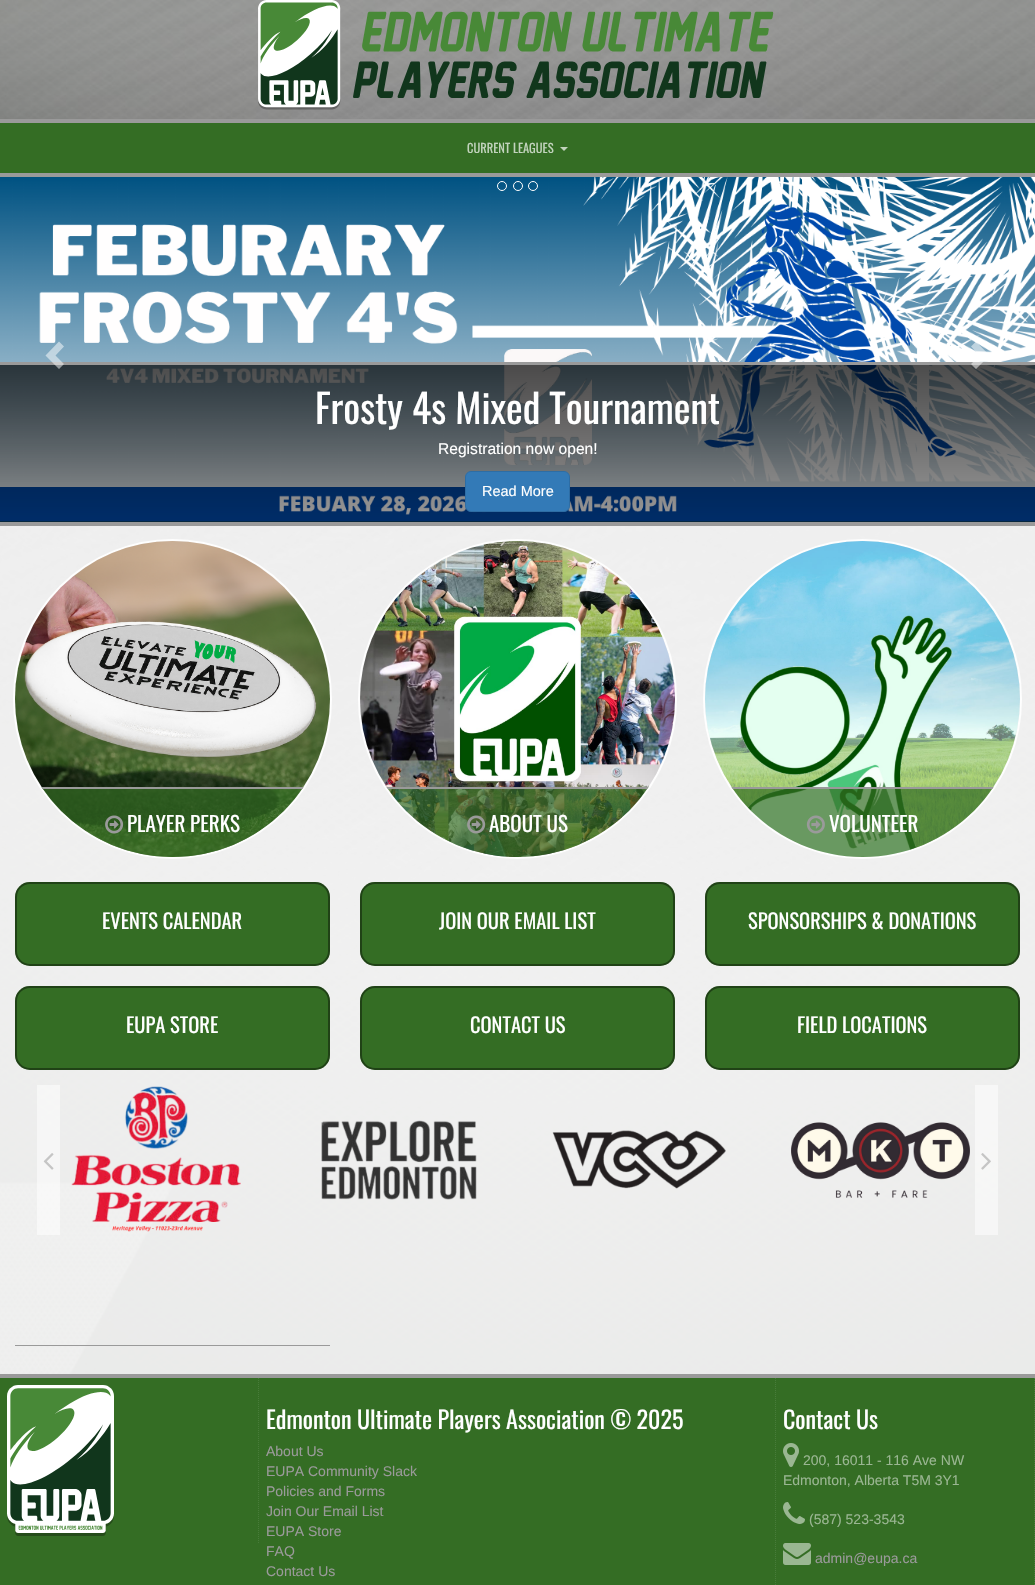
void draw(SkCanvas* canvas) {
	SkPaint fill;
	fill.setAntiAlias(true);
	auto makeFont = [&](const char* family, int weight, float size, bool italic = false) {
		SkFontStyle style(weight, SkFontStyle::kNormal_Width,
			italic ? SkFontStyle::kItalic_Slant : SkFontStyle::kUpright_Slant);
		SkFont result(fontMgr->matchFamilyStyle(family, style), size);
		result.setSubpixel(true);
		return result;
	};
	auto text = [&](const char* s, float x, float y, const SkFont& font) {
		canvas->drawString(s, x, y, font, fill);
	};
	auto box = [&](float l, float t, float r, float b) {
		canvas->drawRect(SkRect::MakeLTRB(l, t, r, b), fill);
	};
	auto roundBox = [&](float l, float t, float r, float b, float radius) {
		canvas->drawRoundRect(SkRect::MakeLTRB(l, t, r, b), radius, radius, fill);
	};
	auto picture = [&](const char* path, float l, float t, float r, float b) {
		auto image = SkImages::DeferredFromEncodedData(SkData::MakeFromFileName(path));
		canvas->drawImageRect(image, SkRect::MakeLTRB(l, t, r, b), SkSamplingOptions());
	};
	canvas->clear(0xFFFFFFFF);
	picture("image0.png", 0, 0, 1035, 1374);
	picture("image1.png", 0, 0, 1035, 119);
	picture("image2.png", 258, 0, 774, 110);
	fill.setColor(0xFF9A9A9A);
	box(0, 119, 1035, 123);
	fill.setColor(0xFF346D24);
	box(0, 123, 1035, 173);
	fill.setColor(0xFFC2D3BD);
	canvas->drawPath(SkPathBuilder().moveTo(560, 147).lineTo(568, 147).lineTo(564, 151).close().detach(), fill);
	fill.setColor(0xFF9A9A9A);
	box(0, 173, 1035, 177);
	fill.setColor(0xFF11361C);
	box(0, 521, 1035, 522);
	picture("image3.png", 0, 177, 1035, 522);
	fill.setStyle(SkPaint::kStroke_Style);
	fill.setStrokeWidth(1);
	fill.setColor(0xFFFFFFFF);
	canvas->drawCircle(502, 186, 4.5f, fill);
	canvas->drawCircle(518, 186, 4.5f, fill);
	canvas->drawCircle(533, 186, 4.5f, fill);
	fill.setStyle(SkPaint::kFill_Style);
	{
		const SkColor colors[] = {0xB3000000, 0x66000000};
		const float stops[] = {0, 1};
		const SkPoint ends[] = {{518, 365}, {518, 522}};
		fill.setShader(SkGradientShader::MakeLinear(ends, colors, stops, 2, SkTileMode::kClamp));
		fill.setAlpha(255);
	}
	box(0, 365, 1035, 522);
	fill.setShader(nullptr);
	fill.setColor(0xFF9A9A9A);
	box(0, 362, 1035, 365);
	fill.setColor(0x80FFFFFF);
	canvas->drawPath(SkPathBuilder().moveTo(64, 346.5f).lineTo(55.5f, 355.5f).lineTo(64, 364).lineTo(59, 369).lineTo(45.5f, 355.5f).lineTo(59, 341.5f).close().detach(), fill);
	canvas->drawPath(SkPathBuilder().moveTo(989.5f, 355.5f).lineTo(976, 369).lineTo(971, 364).lineTo(979.5f, 355.5f).lineTo(971, 346.5f).lineTo(976, 341.5f).close().detach(), fill);
	fill.setColor(0xFF337AB7);
	canvas->drawRoundRect(SkRect::MakeLTRB(465.5f, 471.5f, 569.5f, 511.5f), 5.5f, 5.5f, fill);
	fill.setStyle(SkPaint::kStroke_Style);
	fill.setColor(0xFF2E6DA4);
	canvas->drawRoundRect(SkRect::MakeLTRB(465.5f, 471.5f, 569.5f, 511.5f), 5.5f, 5.5f, fill);
	fill.setStyle(SkPaint::kFill_Style);
	fill.setColor(0xFF9A9A9A);
	box(0, 522, 1035, 526);
	fill.setColor(0xE6FFFFFF);
	box(0, 526, 1035, 1374);
	fill.setStyle(SkPaint::kStroke_Style);
	fill.setStrokeWidth(2);
	canvas->drawRoundRect(SkRect::MakeLTRB(14, 540, 331, 858), 158.5f, 158.5f, fill);
	picture("image4.png", 15, 541, 330, 857);
	canvas->save();
	canvas->clipPath(SkPathBuilder().moveTo(172.5f, 541).cubicTo(259.5f, 541, 330, 611.5f, 330, 698.5f).lineTo(330, 699.5f).cubicTo(330, 786.5f, 259.5f, 857, 172.5f, 857).cubicTo(85.5f, 857, 15, 786.5f, 15, 699.5f).lineTo(15, 698.5f).cubicTo(15, 611.5f, 85.5f, 541, 172.5f, 541).close().detach(), true);
	fill.setStyle(SkPaint::kFill_Style);
	fill.setColor(0xB3346D24);
	box(41, 787, 304, 857);
	fill.setColor(0xFF9A9A9A);
	box(41, 787, 304, 789);
	canvas->restore();
	picture("image5.png", 105, 815, 124, 834);
	fill.setStyle(SkPaint::kStroke_Style);
	fill.setColor(0xE6FFFFFF);
	canvas->drawRoundRect(SkRect::MakeLTRB(359, 540, 676, 858), 158.5f, 158.5f, fill);
	picture("image6.png", 360, 541, 675, 857);
	canvas->save();
	canvas->clipPath(SkPathBuilder().moveTo(517.5f, 541).cubicTo(604.5f, 541, 675, 611.5f, 675, 698.5f).lineTo(675, 699.5f).cubicTo(675, 786.5f, 604.5f, 857, 517.5f, 857).cubicTo(430.5f, 857, 360, 786.5f, 360, 699.5f).lineTo(360, 698.5f).cubicTo(360, 611.5f, 430.5f, 541, 517.5f, 541).close().detach(), true);
	fill.setStyle(SkPaint::kFill_Style);
	fill.setColor(0xB3346D24);
	box(386, 787, 649, 857);
	fill.setColor(0xFF9A9A9A);
	box(386, 787, 649, 789);
	canvas->restore();
	picture("image7.png", 467, 815, 486, 834);
	fill.setStyle(SkPaint::kStroke_Style);
	fill.setColor(0xE6FFFFFF);
	canvas->drawRoundRect(SkRect::MakeLTRB(704, 540, 1021, 858), 158.5f, 158.5f, fill);
	picture("image8.png", 705, 541, 1020, 857);
	canvas->save();
	canvas->clipPath(SkPathBuilder().moveTo(862.5f, 541).cubicTo(949.5f, 541, 1020, 611.5f, 1020, 698.5f).lineTo(1020, 699.5f).cubicTo(1020, 786.5f, 949.5f, 857, 862.5f, 857).cubicTo(775.5f, 857, 705, 786.5f, 705, 699.5f).lineTo(705, 698.5f).cubicTo(705, 611.5f, 775.5f, 541, 862.5f, 541).close().detach(), true);
	fill.setStyle(SkPaint::kFill_Style);
	fill.setColor(0xB3346D24);
	box(731, 787, 994, 857);
	fill.setColor(0xFF9A9A9A);
	box(731, 787, 994, 789);
	canvas->restore();
	picture("image9.png", 806, 815, 825, 834);
	fill.setColor(0xFF346D24);
	roundBox(15, 882, 330, 966, 15);
	fill.setStyle(SkPaint::kStroke_Style);
	fill.setColor(0x66000000);
	canvas->drawRoundRect(SkRect::MakeLTRB(16, 883, 329, 965), 14, 14, fill);
	fill.setStyle(SkPaint::kFill_Style);
	fill.setColor(0xFF346D24);
	roundBox(360, 882, 675, 966, 15);
	fill.setStyle(SkPaint::kStroke_Style);
	fill.setColor(0x66000000);
	canvas->drawRoundRect(SkRect::MakeLTRB(361, 883, 674, 965), 14, 14, fill);
	fill.setStyle(SkPaint::kFill_Style);
	fill.setColor(0xFF346D24);
	roundBox(705, 882, 1020, 966, 15);
	fill.setStyle(SkPaint::kStroke_Style);
	fill.setColor(0x66000000);
	canvas->drawRoundRect(SkRect::MakeLTRB(706, 883, 1019, 965), 14, 14, fill);
	fill.setStyle(SkPaint::kFill_Style);
	fill.setColor(0xFF346D24);
	roundBox(15, 986, 330, 1070, 15);
	fill.setStyle(SkPaint::kStroke_Style);
	fill.setColor(0x66000000);
	canvas->drawRoundRect(SkRect::MakeLTRB(16, 987, 329, 1069), 14, 14, fill);
	fill.setStyle(SkPaint::kFill_Style);
	fill.setColor(0xFF346D24);
	roundBox(360, 986, 675, 1070, 15);
	fill.setStyle(SkPaint::kStroke_Style);
	fill.setColor(0x66000000);
	canvas->drawRoundRect(SkRect::MakeLTRB(361, 987, 674, 1069), 14, 14, fill);
	fill.setStyle(SkPaint::kFill_Style);
	fill.setColor(0xFF346D24);
	roundBox(705, 986, 1020, 1070, 15);
	fill.setStyle(SkPaint::kStroke_Style);
	fill.setColor(0x66000000);
	canvas->drawRoundRect(SkRect::MakeLTRB(706, 987, 1019, 1069), 14, 14, fill);
	fill.setStyle(SkPaint::kFill_Style);
	fill.setColor(0x80FFFFFF);
	box(37, 1085, 60, 1235);
	picture("image10.png", 43, 1153, 54, 1170);
	picture("image11.png", 71, 1086, 241, 1232);
	picture("image12.png", 321, 1120, 477, 1200);
	picture("image13.png", 552, 1130, 726, 1189);
	picture("image14.png", 791, 1122, 970, 1198);
	box(975, 1085, 998, 1235);
	picture("image15.png", 981, 1153, 991, 1170);
	fill.setColor(0xFF9A9A9A);
	box(15, 1345, 330, 1346);
	box(0, 1374, 1035, 1378);
	fill.setColor(0xFF346D24);
	box(0, 1378, 1035, 1585);
	fill.setStyle(SkPaint::kStroke_Style);
	fill.setStrokeWidth(1);
	fill.setColor(0xFF487C3A);
	fill.setPathEffect(SkDashPathEffect::Make({{1, 1}}, 0));
	canvas->drawPath(SkPathBuilder().moveTo(258.5f, 1378).lineTo(258.5f, 1543).detach(), fill);
	fill.setPathEffect(nullptr);
	picture("image16.png", 7, 1385, 114, 1536);
	fill.setPathEffect(SkDashPathEffect::Make({{1, 1}}, 0));
	canvas->drawPath(SkPathBuilder().moveTo(775.5f, 1378).lineTo(775.5f, 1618).detach(), fill);
	fill.setPathEffect(nullptr);
	fill.setPathEffect(SkDashPathEffect::Make({{1, 1}}, 0));
	canvas->drawPath(SkPathBuilder().moveTo(1034.5f, 1378).lineTo(1034.5f, 1585).detach(), fill);
	fill.setPathEffect(nullptr);
	picture("image17.png", 783, 1443, 799, 1467);
	picture("image18.png", 783, 1502, 805, 1524);
	picture("image19.png", 783, 1543, 811, 1565);
	auto font1 = makeFont("Oswald", 400, 12.5f);
	fill.setStyle(SkPaint::kFill_Style);
	fill.setColor(0xFFC2D3BD);
	text("CURRENT LEAGUES", 467, 153, font1);
	auto font2 = makeFont("Oswald", 400, 39.75f);
	fill.setColor(0xFFFFFFFF);
	text("Frosty 4s Mixed Tournament", 315, 424, font2);
	auto font3 = makeFont("Liberation Sans", 400, 15.6f);
	text("Registration now open!", 438, 454, font3);
	auto font4 = makeFont("Liberation Sans", 400, 14.5f);
	text("Read More", 482, 496, font4);
	auto font5 = makeFont("Oswald", 400, 21);
	text("PLAYER PERKS", 127, 832, font5);
	text("ABOUT US", 489, 832, font5);
	text("VOLUNTEER", 829, 832, font5);
	auto font6 = makeFont("Oswald", 400, 20.5f);
	text("EVENTS CALENDAR", 102, 929, font6);
	text("JOIN OUR EMAIL LIST", 439, 929, font6);
	text("SPONSORSHIPS & DONATIONS", 748, 929, font6);
	text("EUPA STORE", 126, 1033, font6);
	text("CONTACT US", 470, 1033, font6);
	text("FIELD LOCATIONS", 797, 1033, font6);
	auto font7 = makeFont("Oswald", 400, 24);
	text("Edmonton Ultimate Players Association © 2025", 266, 1429, font7);
	auto font8 = makeFont("Liberation Sans", 400, 14);
	fill.setColor(0xFF9A9A9A);
	text("About Us", 266, 1456, font8);
	text("EUPA Community Slack", 266, 1476, font8);
	text("Policies and Forms", 266, 1496, font8);
	text("Join Our Email List", 266, 1516, font8);
	text("EUPA Store", 266, 1536, font8);
	text("FAQ", 266, 1556, font8);
	text("Contact Us", 266, 1576, font8);
	fill.setColor(0xFFFFFFFF);
	text("Contact Us", 783, 1429, font7);
	fill.setColor(0xFF9AB692);
	text("200, 16011 - 116 Ave NW", 803, 1465, font8);
	text("Edmonton, Alberta T5M 3Y1", 783, 1485, font8);
	text("(587) 523-3543", 809, 1524, font8);
	fill.setColor(0xFF9A9A9A);
	text("admin@eupa.ca", 815, 1563, font8);
}
